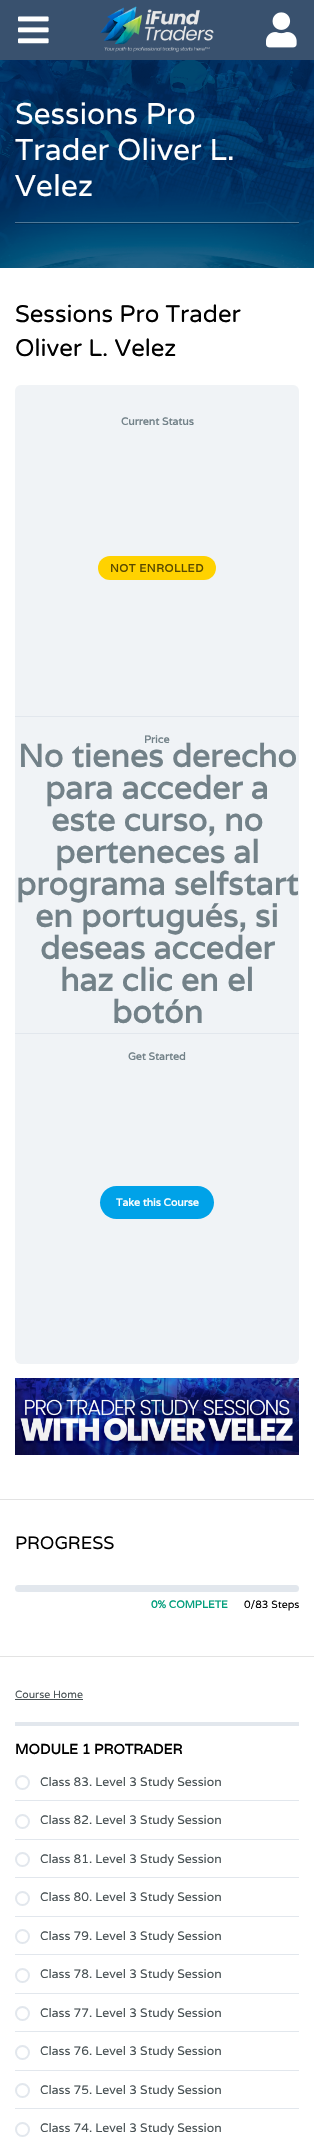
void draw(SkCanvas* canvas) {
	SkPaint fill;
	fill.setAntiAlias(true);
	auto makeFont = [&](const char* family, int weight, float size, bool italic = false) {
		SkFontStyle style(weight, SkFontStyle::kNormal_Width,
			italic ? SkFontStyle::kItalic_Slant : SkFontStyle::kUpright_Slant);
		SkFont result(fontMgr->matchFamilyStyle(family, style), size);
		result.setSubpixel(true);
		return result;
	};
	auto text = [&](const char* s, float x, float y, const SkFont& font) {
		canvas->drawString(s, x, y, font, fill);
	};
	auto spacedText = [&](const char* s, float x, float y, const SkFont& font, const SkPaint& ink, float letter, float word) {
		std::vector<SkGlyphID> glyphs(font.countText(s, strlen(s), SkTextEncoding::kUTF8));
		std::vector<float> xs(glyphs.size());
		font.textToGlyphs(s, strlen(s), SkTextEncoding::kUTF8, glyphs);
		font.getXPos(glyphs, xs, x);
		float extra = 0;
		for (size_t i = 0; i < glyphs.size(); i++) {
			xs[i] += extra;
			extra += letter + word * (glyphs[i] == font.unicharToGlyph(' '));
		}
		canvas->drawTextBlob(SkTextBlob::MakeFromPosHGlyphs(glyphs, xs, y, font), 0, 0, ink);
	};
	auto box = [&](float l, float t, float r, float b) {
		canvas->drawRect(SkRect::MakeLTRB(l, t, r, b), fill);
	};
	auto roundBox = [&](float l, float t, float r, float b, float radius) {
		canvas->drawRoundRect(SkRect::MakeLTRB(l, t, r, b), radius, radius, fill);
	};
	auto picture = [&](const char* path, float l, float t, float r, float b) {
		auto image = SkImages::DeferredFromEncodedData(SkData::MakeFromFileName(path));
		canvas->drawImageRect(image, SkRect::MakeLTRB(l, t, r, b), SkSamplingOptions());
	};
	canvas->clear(0xFF39516E);
	picture("image0.png", 18, 16, 49, 44);
	picture("image1.png", 100, 6, 214, 53);
	picture("image2.png", 266, 12, 297, 48);
	fill.setColor(0xFFFFFFFF);
	box(0, 268, 314, 2140);
	picture("image3.png", 0, 60, 314, 268);
	fill.setColor(0x33000000);
	box(15, 223, 299, 224);
	fill.setColor(0x4DFFFFFF);
	box(15, 222, 299, 223);
	fill.setColor(0xFFF0F3F6);
	roundBox(15, 385, 299, 1364, 6);
	fill.setColor(0xFFE2E7ED);
	box(15, 716, 299, 717);
	fill.setColor(0xFFFFD200);
	roundBox(98, 556, 216, 580, 12);
	fill.setColor(0xFFE2E7ED);
	box(15, 1033, 299, 1034);
	fill.setColor(0xFF00A2E8);
	roundBox(100, 1186, 214, 1219, 16.5f);
	picture("image4.png", 15, 1378, 299, 1455);
	fill.setColor(0xFFE3E3E3);
	box(0, 1499, 314, 1500);
	box(0, 1656, 314, 1657);
	fill.setColor(0xFFE2E7ED);
	roundBox(15, 1585, 299, 1592, 3.5f);
	box(15, 1722, 299, 1726);
	fill.setColor(0xFF495255);
	box(15, 1699, 83, 1700);
	fill.setColor(0xFFE2E7ED);
	box(15, 1800, 299, 1801);
	fill.setStyle(SkPaint::kStroke_Style);
	fill.setStrokeWidth(2);
	canvas->drawCircle(22.5f, 1782.5f, 6.5f, fill);
	fill.setStyle(SkPaint::kFill_Style);
	box(15, 1839, 299, 1840);
	fill.setStyle(SkPaint::kStroke_Style);
	canvas->drawCircle(22.5f, 1821.5f, 6.5f, fill);
	fill.setStyle(SkPaint::kFill_Style);
	box(15, 1877, 299, 1878);
	fill.setStyle(SkPaint::kStroke_Style);
	canvas->drawCircle(22.5f, 1859.5f, 6.5f, fill);
	fill.setStyle(SkPaint::kFill_Style);
	box(15, 1916, 299, 1917);
	fill.setStyle(SkPaint::kStroke_Style);
	canvas->drawCircle(22.5f, 1898.5f, 6.5f, fill);
	fill.setStyle(SkPaint::kFill_Style);
	box(15, 1954, 299, 1955);
	fill.setStyle(SkPaint::kStroke_Style);
	canvas->drawCircle(22.5f, 1936.5f, 6.5f, fill);
	fill.setStyle(SkPaint::kFill_Style);
	box(15, 1993, 299, 1994);
	fill.setStyle(SkPaint::kStroke_Style);
	canvas->drawCircle(22.5f, 1975.5f, 6.5f, fill);
	fill.setStyle(SkPaint::kFill_Style);
	box(15, 2031, 299, 2032);
	fill.setStyle(SkPaint::kStroke_Style);
	canvas->drawCircle(22.5f, 2013.5f, 6.5f, fill);
	fill.setStyle(SkPaint::kFill_Style);
	box(15, 2070, 299, 2071);
	fill.setStyle(SkPaint::kStroke_Style);
	canvas->drawCircle(22.5f, 2052.5f, 6.5f, fill);
	fill.setStyle(SkPaint::kFill_Style);
	box(15, 2108, 299, 2109);
	fill.setStyle(SkPaint::kStroke_Style);
	canvas->drawCircle(22.5f, 2090.5f, 6.5f, fill);
	canvas->drawCircle(22.5f, 2129.5f, 6.5f, fill);
	auto font1 = makeFont("Varela", 400, 30);
	fill.setStyle(SkPaint::kFill_Style);
	fill.setColor(0xFFFFFFFF);
	text("Sessions Pro", 15, 124, font1);
	text("Trader Oliver L.", 15, 160, font1);
	text("Velez", 15, 196, font1);
	auto font2 = makeFont("Varela Round", 400, 24);
	fill.setColor(0xFF000000);
	text("Sessions Pro Trader", 15, 322, font2);
	text("Oliver L. Velez", 15, 356, font2);
	auto font3 = makeFont("Varela", 700, 10.5f);
	fill.setColor(0xFF728188);
	text("Current Status", 121, 425, font3);
	auto font4 = makeFont("Varela", 700, 11);
	fill.setColor(0xFF594A00);
	spacedText("NOT ENROLLED", 110, 572, font4, fill, 0.5f, 0);
	fill.setColor(0xFF728188);
	text("Price", 144, 743, font3);
	auto font5 = makeFont("Varela", 700, 32);
	text("No tienes derecho", 18, 767, font5);
	text("para acceder a", 45, 799, font5);
	text("este curso, no", 51, 831, font5);
	text("perteneces al", 55, 863, font5);
	text("programa selfstart", 16, 895, font5);
	text("en portugués, si", 35, 927, font5);
	text("deseas acceder", 40, 959, font5);
	text("haz clic en el", 60, 991, font5);
	text("botón", 112, 1023, font5);
	text("Get Started", 128, 1060, font3);
	fill.setColor(0xFFFFFFFF);
	text("Take this Course", 116, 1206, font3);
	auto font6 = makeFont("Varela", 400, 18);
	fill.setColor(0xFF000000);
	text("PROGRESS", 15, 1549, font6);
	fill.setColor(0xFF019E7C);
	text("0% COMPLETE", 151, 1608, font3);
	auto font7 = makeFont("Varela", 400, 10.5f);
	fill.setColor(0xFF000000);
	text("0/83 Steps", 244, 1608, font7);
	fill.setColor(0xFF495255);
	text("Course Home", 15, 1698, font7);
	auto font8 = makeFont("Varela", 700, 14);
	fill.setColor(0xFF000000);
	text("MODULE 1 PROTRADER", 15, 1754, font8);
	auto font9 = makeFont("Varela", 400, 12.25f);
	fill.setColor(0xFF495255);
	text("Class 83. Level 3 Study Session", 40, 1786, font9);
	text("Class 82. Level 3 Study Session", 40, 1824, font9);
	text("Class 81. Level 3 Study Session", 40, 1863, font9);
	text("Class 80. Level 3 Study Session", 40, 1901, font9);
	text("Class 79. Level 3 Study Session", 40, 1940, font9);
	text("Class 78. Level 3 Study Session", 40, 1978, font9);
	text("Class 77. Level 3 Study Session", 40, 2017, font9);
	text("Class 76. Level 3 Study Session", 40, 2055, font9);
	text("Class 75. Level 3 Study Session", 40, 2094, font9);
	text("Class 74. Level 3 Study Session", 40, 2132, font9);
}
